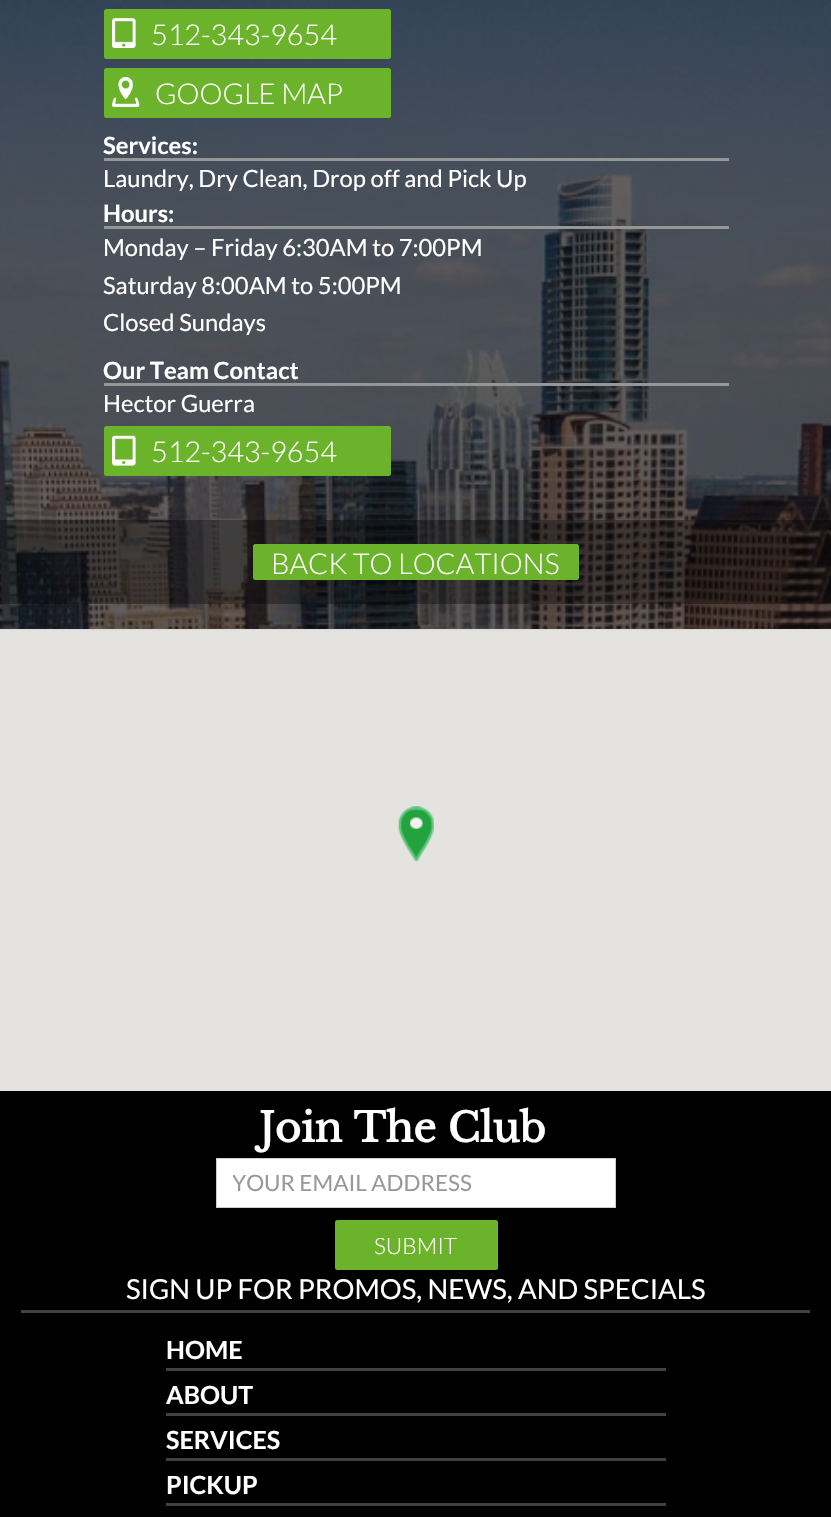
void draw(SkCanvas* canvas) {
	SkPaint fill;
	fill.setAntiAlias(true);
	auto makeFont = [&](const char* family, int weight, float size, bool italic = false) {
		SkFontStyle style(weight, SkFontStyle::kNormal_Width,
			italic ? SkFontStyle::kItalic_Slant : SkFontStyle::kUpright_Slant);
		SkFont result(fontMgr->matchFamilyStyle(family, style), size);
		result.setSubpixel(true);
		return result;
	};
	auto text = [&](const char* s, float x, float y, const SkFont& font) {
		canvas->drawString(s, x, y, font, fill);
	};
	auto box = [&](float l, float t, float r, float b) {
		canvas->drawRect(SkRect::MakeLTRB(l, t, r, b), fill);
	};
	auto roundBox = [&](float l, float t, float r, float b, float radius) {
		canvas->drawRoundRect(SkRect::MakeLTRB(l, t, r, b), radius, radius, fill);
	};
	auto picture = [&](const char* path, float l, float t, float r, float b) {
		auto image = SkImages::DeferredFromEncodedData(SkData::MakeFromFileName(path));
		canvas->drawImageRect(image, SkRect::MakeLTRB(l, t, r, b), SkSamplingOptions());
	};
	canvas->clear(0xFFFFFFFF);
	picture("image0.png", 0, 0, 831, 629);
	fill.setColor(0xFF6CB32C);
	roundBox(104, 9, 391, 59, 2.5f);
	picture("image1.png", 112, 18, 136, 48);
	roundBox(104, 68, 391, 118, 2.5f);
	picture("image2.png", 112, 77, 140, 107);
	fill.setColor(0xFF969696);
	box(104, 158, 729, 161);
	box(104, 226, 729, 229);
	box(104, 383, 729, 386);
	fill.setColor(0xFF6CB32C);
	roundBox(104, 426, 391, 476, 2.5f);
	picture("image3.png", 112, 435, 136, 466);
	fill.setColor(0x57000000);
	box(0, 520, 831, 604);
	fill.setColor(0xFF6CB32C);
	roundBox(253, 544, 579, 580, 2.5f);
	fill.setColor(0xFFDEDEDE);
	box(0, 629, 831, 631);
	fill.setColor(0xFFE5E3DF);
	box(0, 631, 831, 1091);
	picture("image4.png", 398, 806, 434, 862);
	fill.setColor(0xFF000000);
	box(0, 1091, 831, 1517);
	fill.setColor(0xFF414141);
	box(21, 1310, 810, 1313);
	fill.setColor(0xFFFFFFFF);
	canvas->drawRect(SkRect::MakeLTRB(216.5f, 1158.5f, 615.5f, 1207.5f), fill);
	fill.setStyle(SkPaint::kStroke_Style);
	fill.setStrokeWidth(1);
	fill.setColor(0xFFCCCCCC);
	canvas->drawRect(SkRect::MakeLTRB(216.5f, 1158.5f, 615.5f, 1207.5f), fill);
	fill.setStyle(SkPaint::kFill_Style);
	fill.setColor(0xFF6CB32C);
	roundBox(335, 1220, 498, 1270, 2.5f);
	fill.setColor(0xFF414141);
	box(166, 1368, 666, 1371);
	box(166, 1413, 666, 1416);
	box(166, 1458, 666, 1461);
	box(166, 1503, 666, 1506);
	auto font1 = makeFont("Lato", 300, 28.75f);
	fill.setColor(0xFFFFFFFF);
	text("512-343-9654", 151, 45, font1);
	text("GOOGLE MAP", 155, 104, font1);
	auto font2 = makeFont("Lato", 700, 23.75f);
	text("Services:", 103, 154, font2);
	auto font3 = makeFont("Lato", 400, 23.75f);
	text("Laundry, Dry Clean, Drop off and Pick Up", 103, 187, font3);
	text("Hours:", 103, 222, font2);
	text("Monday – Friday 6:30AM to 7:00PM", 103, 256, font3);
	text("Saturday 8:00AM to 5:00PM", 103, 294, font3);
	text("Closed Sundays", 103, 331, font3);
	text("Our Team Contact", 103, 379, font2);
	text("Hector Guerra", 103, 412, font3);
	text("512-343-9654", 151, 462, font1);
	text("BACK TO LOCATIONS", 271, 574, font1);
	auto font4 = makeFont("Libre Baskerville", 700, 40);
	text("Join The Club", 259, 1142, font4);
	canvas->save();
	canvas->clipRect(SkRect::MakeLTRB(233, 1169, 600, 1196));
	auto font5 = makeFont("Lato", 400, 22.5f);
	fill.setColor(0xFF999999);
	text("YOUR EMAIL ADDRESS", 232, 1191, font5);
	canvas->restore();
	auto font6 = makeFont("Lato", 300, 22.5f);
	fill.setColor(0xFFFFFFFF);
	text("SUBMIT", 374, 1254, font6);
	auto font7 = makeFont("Lato", 400, 27.5f);
	text("SIGN UP FOR PROMOS, NEWS, AND SPECIALS", 126, 1299, font7);
	auto font8 = makeFont("Lato", 700, 25);
	text("HOME", 166, 1359, font8);
	text("ABOUT", 166, 1404, font8);
	text("SERVICES", 166, 1449, font8);
	text("PICKUP", 166, 1494, font8);
}
